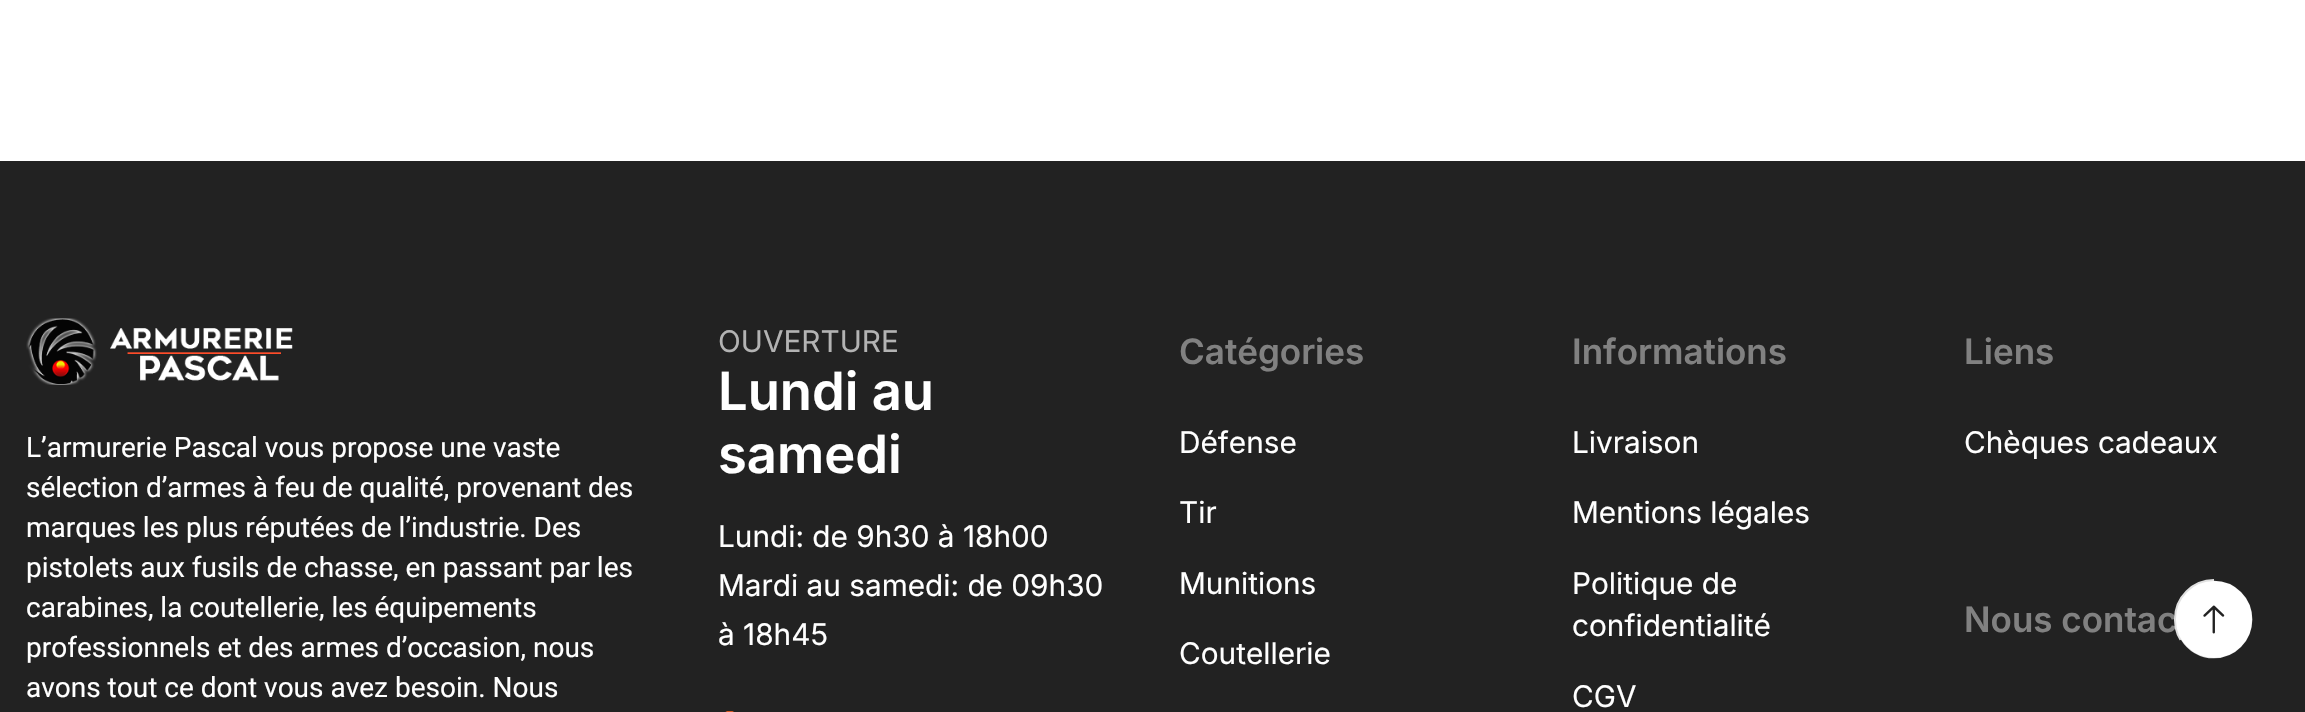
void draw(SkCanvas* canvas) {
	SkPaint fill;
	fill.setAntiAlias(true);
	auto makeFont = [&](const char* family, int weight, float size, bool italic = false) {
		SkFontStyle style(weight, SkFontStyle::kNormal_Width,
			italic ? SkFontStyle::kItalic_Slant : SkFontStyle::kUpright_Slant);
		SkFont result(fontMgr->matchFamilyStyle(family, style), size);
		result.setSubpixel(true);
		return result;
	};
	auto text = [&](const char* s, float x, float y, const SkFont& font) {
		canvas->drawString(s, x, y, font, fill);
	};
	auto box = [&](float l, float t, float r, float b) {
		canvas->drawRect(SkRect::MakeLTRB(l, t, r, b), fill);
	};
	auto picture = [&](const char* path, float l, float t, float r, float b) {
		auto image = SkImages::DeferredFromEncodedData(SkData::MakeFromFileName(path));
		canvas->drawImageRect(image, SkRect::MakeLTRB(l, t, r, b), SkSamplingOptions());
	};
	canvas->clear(0xFFFFFFFF);
	fill.setColor(0xFF222222);
	box(0, 161, 2305, 712);
	picture("image0.png", 26, 318, 293, 385);
	picture("image1.png", 725, 711, 734, 712);
	auto font1 = makeFont("Roboto", 400, 28);
	fill.setColor(0xFFFFFFFF);
	text("L’armurerie Pascal vous propose une vaste", 26, 457, font1);
	text("sélection d’armes à feu de qualité, provenant des", 26, 497, font1);
	text("marques les plus réputées de l’industrie. Des", 26, 537, font1);
	text("pistolets aux fusils de chasse, en passant par les", 26, 577, font1);
	text("carabines, la coutellerie, les équipements", 26, 617, font1);
	text("professionnels et des armes d’occasion, nous", 26, 657, font1);
	text("avons tout ce dont vous avez besoin. Nous", 26, 697, font1);
	auto font2 = makeFont("Inter", 400, 29.75f);
	fill.setColor(0xFFB3B3B3);
	text("OUVERTURE", 718, 352, font2);
	auto font3 = makeFont("Inter", 600, 52.5f);
	fill.setColor(0xFFFFFFFF);
	text("Lundi au", 718, 410, font3);
	text("samedi", 718, 473, font3);
	text("Lundi: de 9h30 à 18h00", 718, 547, font2);
	text("Mardi au samedi: de 09h30", 718, 596, font2);
	text("à 18h45", 718, 645, font2);
	auto font4 = makeFont("Inter", 600, 35);
	fill.setColor(0xFF818181);
	text("Catégories", 1179, 364, font4);
	fill.setColor(0xFFFFFFFF);
	text("Défense", 1179, 453, font2);
	text("Tir", 1179, 523, font2);
	text("Munitions", 1179, 594, font2);
	text("Coutellerie", 1179, 664, font2);
	fill.setColor(0xFF818181);
	text("Informations", 1572, 364, font4);
	fill.setColor(0xFFFFFFFF);
	text("Livraison", 1572, 453, font2);
	text("Mentions légales", 1572, 523, font2);
	text("Politique de", 1572, 594, font2);
	text("confidentialité", 1572, 636, font2);
	text("CGV", 1572, 707, font2);
	fill.setColor(0xFF818181);
	text("Liens", 1964, 364, font4);
	fill.setColor(0xFFFFFFFF);
	text("Chèques cadeaux", 1964, 453, font2);
	fill.setColor(0xFF818181);
	text("Nous contac", 1964, 632, font4);
	fill.setColor(0xFFFFFFFF);
	canvas->drawRoundRect(SkRect::MakeLTRB(2175, 580, 2253, 659), 39, 39, fill);
	fill.setStyle(SkPaint::kStroke_Style);
	fill.setStrokeWidth(2);
	fill.setColor(0xFFE1E1E1);
	canvas->drawRoundRect(SkRect::MakeLTRB(2175, 580, 2253, 659), 39, 39, fill);
	canvas->save();
	canvas->clipRect(SkRect::MakeLTRB(2172, 578, 2256, 662));
	fill.setStrokeWidth(3.3f);
	fill.setColor(0xFF222222);
	canvas->drawPath(SkPathBuilder().moveTo(2214, 579).cubicTo(2236, 579, 2254, 597, 2254, 619.5f).cubicTo(2254, 642, 2236, 660, 2214, 660).cubicTo(2199, 660, 2186.5f, 652, 2179.5f, 640.5f).detach(), fill);
	canvas->restore();
	picture("image2.png", 2203, 605, 2225, 634);
}
